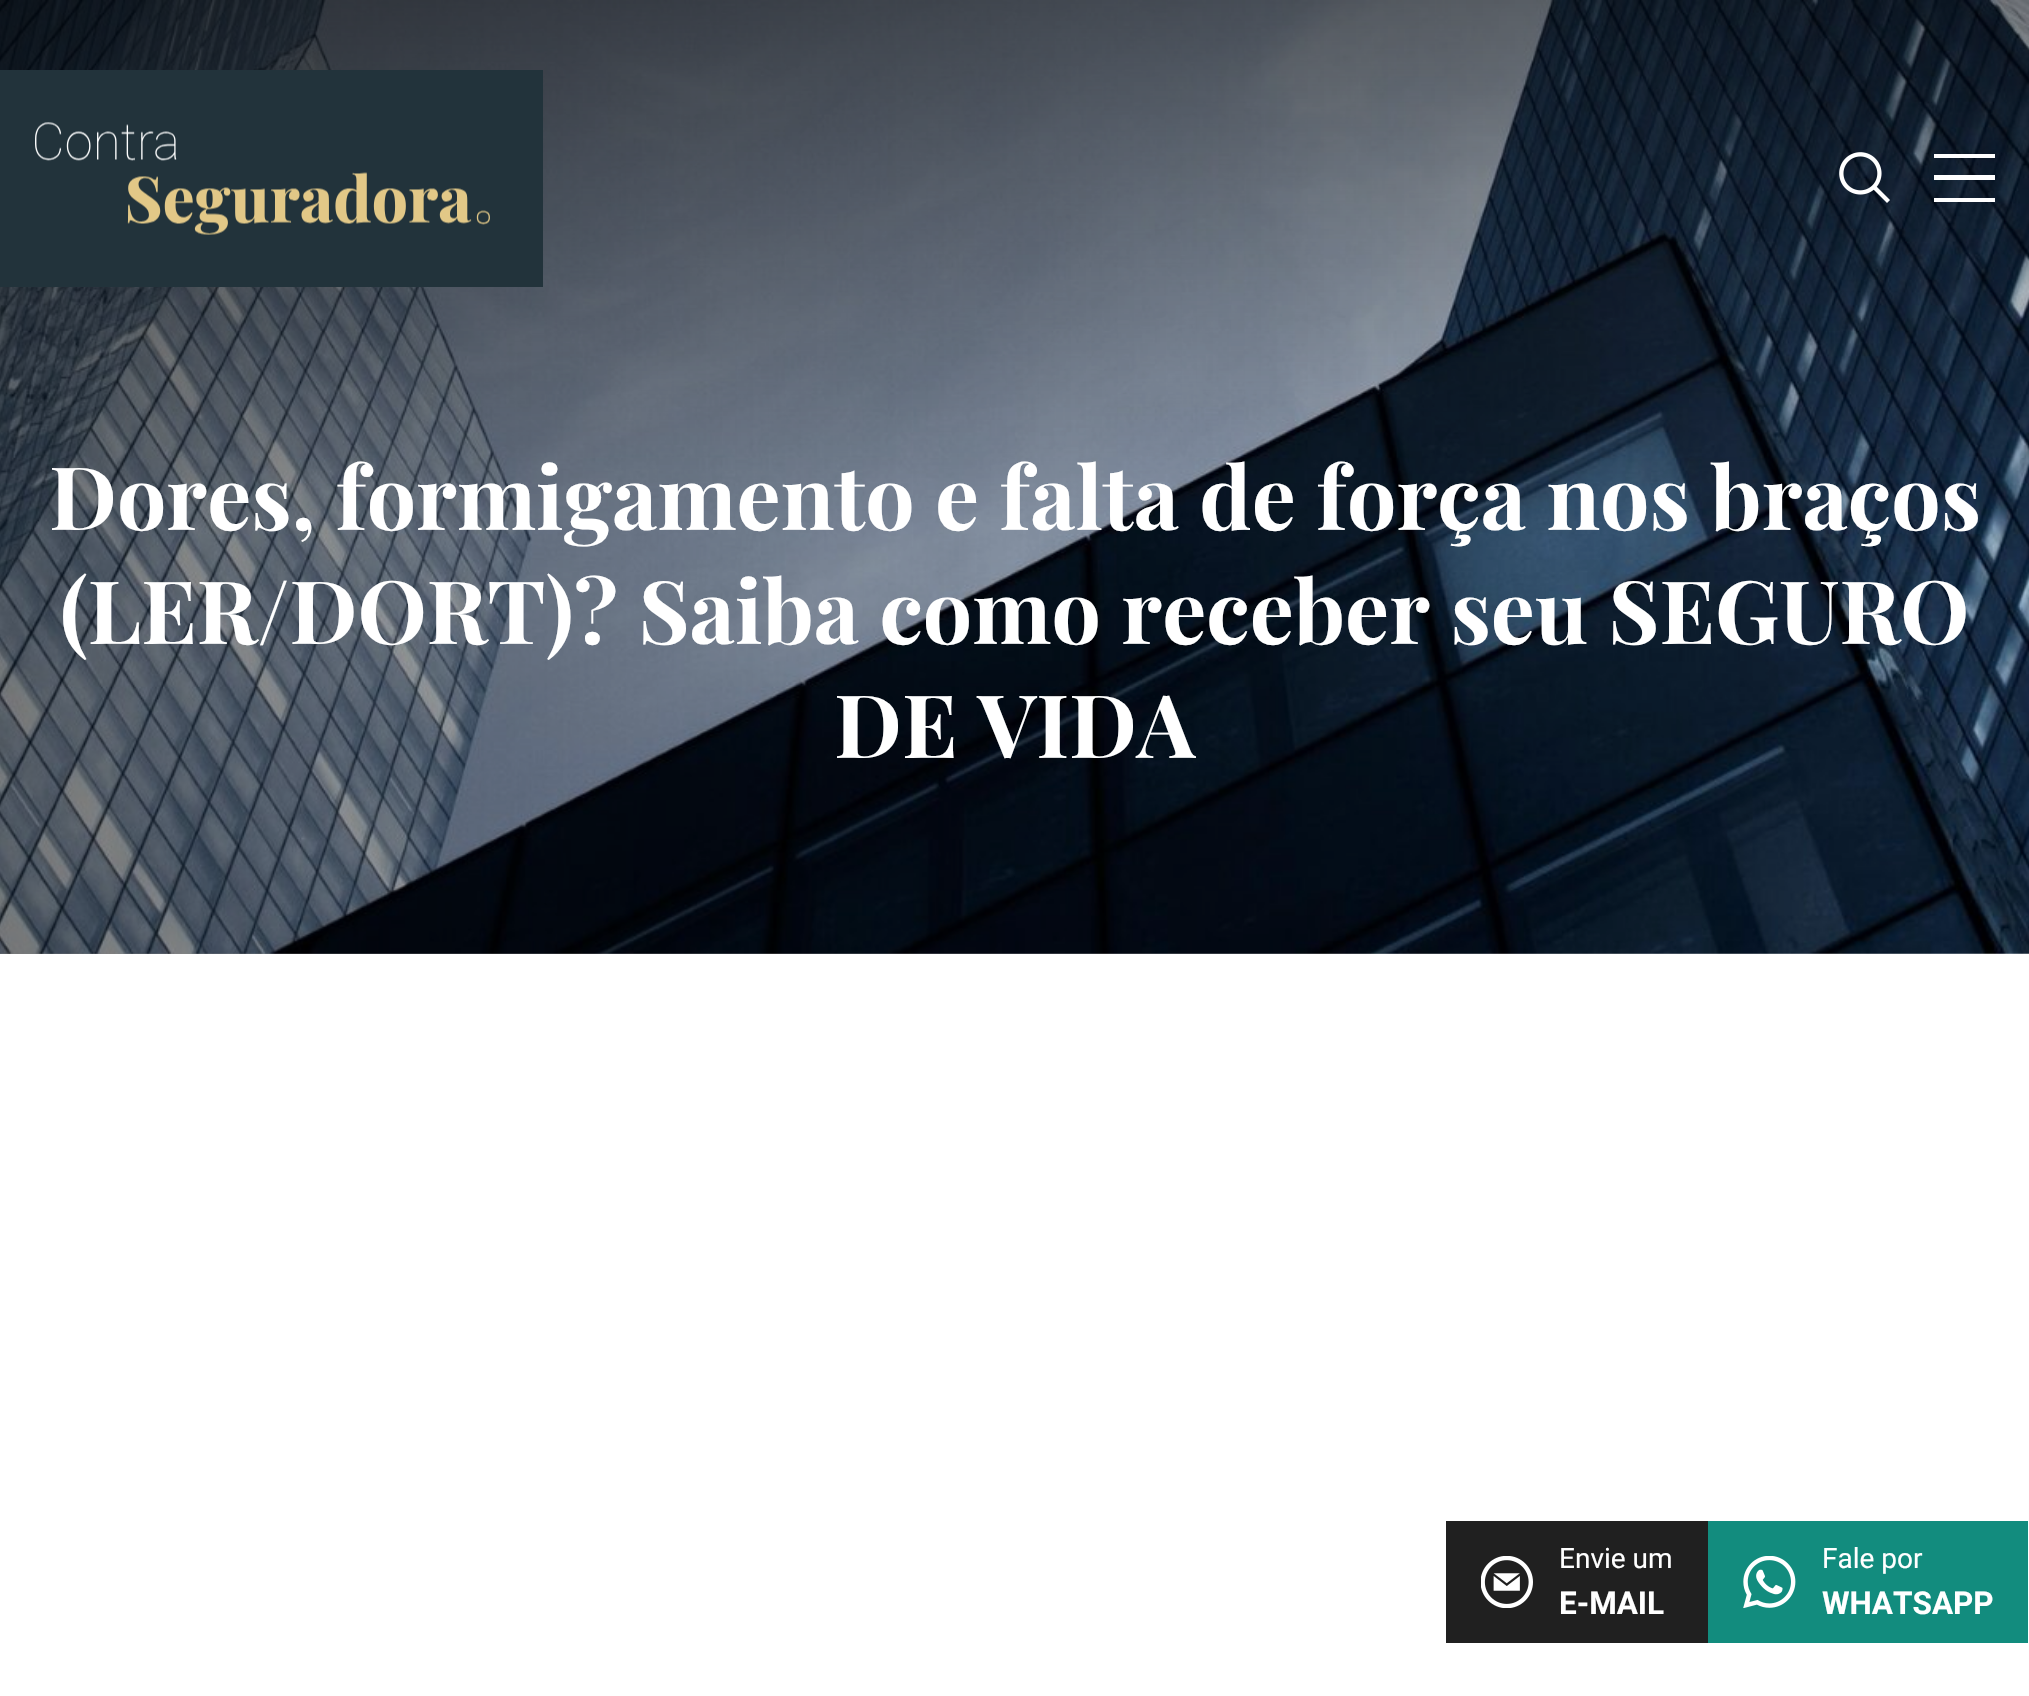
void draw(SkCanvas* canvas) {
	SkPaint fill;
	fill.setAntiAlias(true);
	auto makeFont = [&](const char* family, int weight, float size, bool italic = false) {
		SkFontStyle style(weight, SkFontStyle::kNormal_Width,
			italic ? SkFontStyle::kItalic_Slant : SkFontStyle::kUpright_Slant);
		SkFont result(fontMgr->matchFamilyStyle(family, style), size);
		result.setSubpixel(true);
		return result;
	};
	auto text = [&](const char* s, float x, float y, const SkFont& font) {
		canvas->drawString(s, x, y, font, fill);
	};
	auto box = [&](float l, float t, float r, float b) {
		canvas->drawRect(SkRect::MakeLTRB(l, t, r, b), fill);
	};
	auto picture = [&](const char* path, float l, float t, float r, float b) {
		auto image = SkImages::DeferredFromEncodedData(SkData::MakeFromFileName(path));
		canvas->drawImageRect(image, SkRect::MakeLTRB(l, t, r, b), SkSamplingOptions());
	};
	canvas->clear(0xFFFFFFFF);
	picture("image2.png", 0, 0, 2029, 954);
	{
		const SkColor colors[] = {0x80000000, 0x00000000};
		const float stops[] = {0, 1};
		const SkPoint ends[] = {{0, 477}, {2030, 477}};
		fill.setShader(SkGradientShader::MakeLinear(ends, colors, stops, 2, SkTileMode::kClamp));
		fill.setAlpha(255);
	}
	box(0, 0, 1932, 954);
	fill.setShader(nullptr);
	fill.setColor(0xFF22333B);
	box(0, 70, 543, 287);
	picture("image0.png", 35, 122, 490, 235);
	picture("image1.png", 1839, 152, 1890, 203);
	fill.setColor(0xFFFFFFFF);
	box(1934, 175, 1995, 180);
	box(1934, 154, 1995, 158);
	box(1934, 198, 1995, 202);
	fill.setColor(0xFF202020);
	box(1446, 1521, 1708, 1643);
	picture("image3.png", 1481, 1556, 1533, 1608);
	fill.setColor(0xFF128C7E);
	box(1708, 1521, 2028, 1643);
	picture("image4.png", 1743, 1556, 1796, 1608);
	auto font1 = makeFont("Playfair Display", 700, 87.5f);
	fill.setColor(0xFFFFFFFF);
	text("Dores, formigamento e falta de força nos braços", 49, 530, font1);
	text("(LER/DORT)? Saiba como receber seu SEGURO", 60, 644, font1);
	text("DE VIDA", 834, 758, font1);
	auto font2 = makeFont("Roboto", 400, 28);
	text("Envie um", 1559, 1568, font2);
	auto font3 = makeFont("Roboto", 700, 31.5f);
	text("E-MAIL", 1559, 1614, font3);
	text("Fale por", 1822, 1568, font2);
	text("WHATSAPP", 1822, 1614, font3);
}
